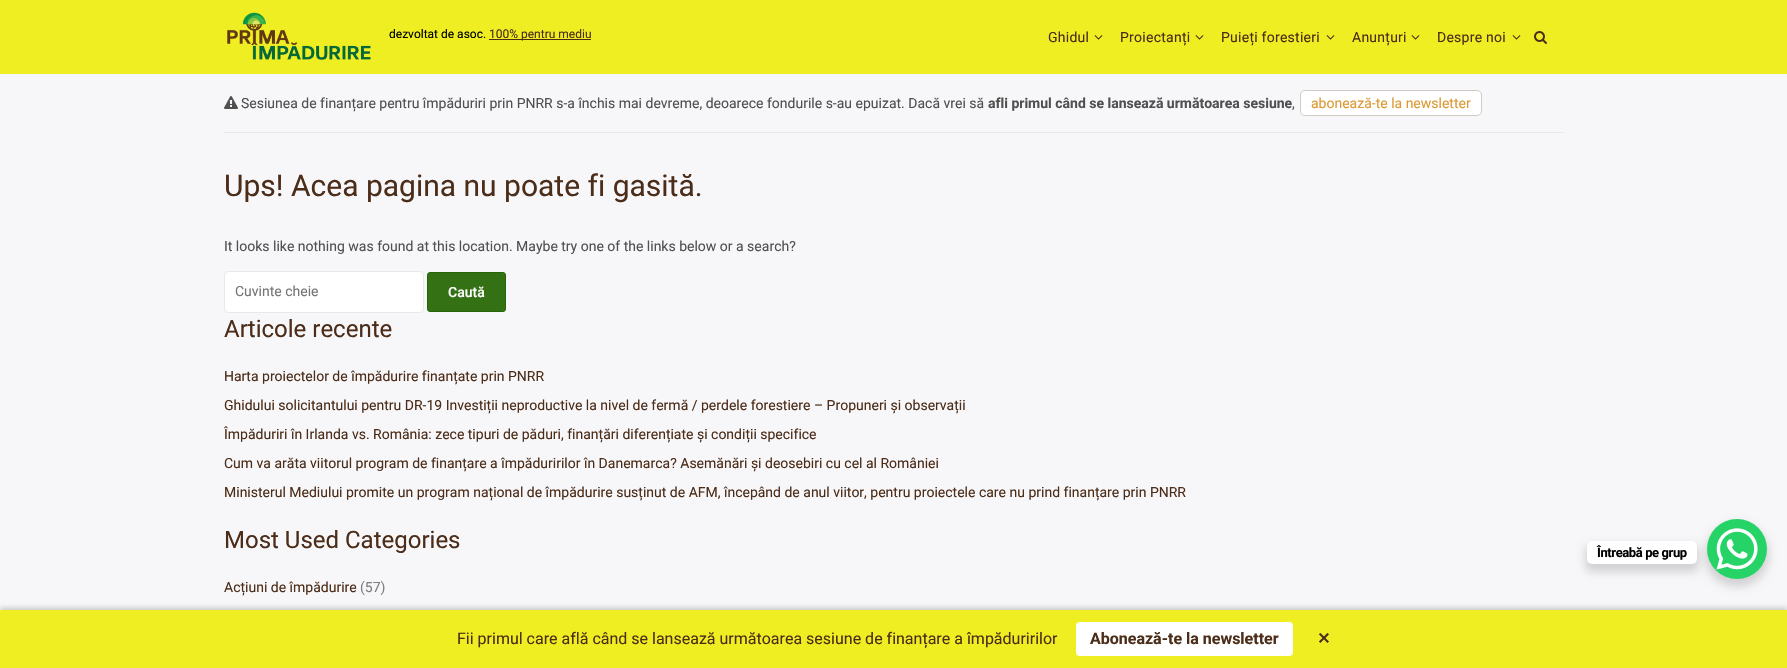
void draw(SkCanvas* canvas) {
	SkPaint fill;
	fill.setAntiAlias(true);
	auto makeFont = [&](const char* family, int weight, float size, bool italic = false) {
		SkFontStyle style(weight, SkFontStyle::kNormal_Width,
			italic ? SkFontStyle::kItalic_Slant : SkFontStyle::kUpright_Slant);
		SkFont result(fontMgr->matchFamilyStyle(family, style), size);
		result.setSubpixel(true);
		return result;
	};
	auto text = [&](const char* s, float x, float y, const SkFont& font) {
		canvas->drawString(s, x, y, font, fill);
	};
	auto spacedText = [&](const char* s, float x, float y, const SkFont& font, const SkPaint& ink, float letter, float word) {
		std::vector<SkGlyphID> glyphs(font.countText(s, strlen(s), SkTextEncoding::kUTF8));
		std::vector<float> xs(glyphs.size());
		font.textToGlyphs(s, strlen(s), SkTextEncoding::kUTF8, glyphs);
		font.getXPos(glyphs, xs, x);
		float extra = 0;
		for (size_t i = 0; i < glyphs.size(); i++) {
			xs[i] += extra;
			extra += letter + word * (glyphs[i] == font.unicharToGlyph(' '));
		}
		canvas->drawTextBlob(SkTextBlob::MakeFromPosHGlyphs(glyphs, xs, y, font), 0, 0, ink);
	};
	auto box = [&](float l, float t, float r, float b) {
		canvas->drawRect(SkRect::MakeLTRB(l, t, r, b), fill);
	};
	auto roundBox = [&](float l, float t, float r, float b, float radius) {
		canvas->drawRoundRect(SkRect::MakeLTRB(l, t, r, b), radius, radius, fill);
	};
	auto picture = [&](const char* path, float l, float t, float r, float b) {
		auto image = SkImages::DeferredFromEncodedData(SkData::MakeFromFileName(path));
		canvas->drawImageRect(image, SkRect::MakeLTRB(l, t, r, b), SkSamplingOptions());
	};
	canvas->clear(0xFFF7F7F9);
	fill.setColor(0xFFEEEE22);
	box(0, 0, 1787, 74);
	picture("image0.png", 227, 12, 371, 60);
	fill.setColor(0xFF4C2D19);
	box(489, 39, 591, 40);
	picture("image1.png", 1094, 35, 1103, 40);
	picture("image1.png", 1195, 35, 1204, 40);
	picture("image1.png", 1326, 35, 1335, 40);
	picture("image1.png", 1411, 35, 1420, 40);
	picture("image1.png", 1512, 35, 1521, 40);
	picture("image2.png", 1534, 31, 1547, 44);
	picture("image3.png", 224, 96, 238, 109);
	fill.setColor(0xFFFFFFFF);
	canvas->drawRoundRect(SkRect::MakeLTRB(1300.5f, 90.5f, 1481.5f, 115.5f), 4.5f, 4.5f, fill);
	fill.setStyle(SkPaint::kStroke_Style);
	fill.setStrokeWidth(1);
	fill.setColor(0xFFD2CBC4);
	canvas->drawRoundRect(SkRect::MakeLTRB(1300.5f, 90.5f, 1481.5f, 115.5f), 4.5f, 4.5f, fill);
	fill.setStyle(SkPaint::kFill_Style);
	fill.setColor(0xFFE8E8E8);
	box(224, 132, 1564, 133);
	fill.setColor(0xFFFFFFFF);
	canvas->drawRoundRect(SkRect::MakeLTRB(224.5f, 271.5f, 423.5f, 312.5f), 3.5f, 3.5f, fill);
	fill.setStyle(SkPaint::kStroke_Style);
	fill.setColor(0xFFE8E8E8);
	canvas->drawRoundRect(SkRect::MakeLTRB(224.5f, 271.5f, 423.5f, 312.5f), 3.5f, 3.5f, fill);
	fill.setStyle(SkPaint::kFill_Style);
	fill.setColor(0xFF347114);
	canvas->drawRoundRect(SkRect::MakeLTRB(427.5f, 272.5f, 505.5f, 311.5f), 2.5f, 2.5f, fill);
	fill.setStyle(SkPaint::kStroke_Style);
	fill.setColor(0xFF266604);
	canvas->drawRoundRect(SkRect::MakeLTRB(427.5f, 272.5f, 505.5f, 311.5f), 2.5f, 2.5f, fill);
	fill.setStyle(SkPaint::kFill_Style);
	fill.setColor(0x26000000);
	fill.setMaskFilter(SkMaskFilter::MakeBlur(kNormal_SkBlurStyle, 4));
	canvas->drawRoundRect(SkRect::MakeLTRB(1705, 523, 1769, 587), 32, 32, fill);
	fill.setMaskFilter(nullptr);
	fill.setColor(0xFF25D366);
	canvas->drawCircle(1737, 549, 30, fill);
	fill.setColor(0x26000000);
	fill.setMaskFilter(SkMaskFilter::MakeBlur(kNormal_SkBlurStyle, 4));
	canvas->drawRoundRect(SkRect::MakeLTRB(1585, 545, 1699, 572), 7, 7, fill);
	fill.setMaskFilter(nullptr);
	fill.setColor(0xFFFFFFFF);
	roundBox(1587, 541, 1697, 564, 5);
	picture("image4.png", 1716, 528, 1758, 570);
	fill.setColor(0x33000000);
	fill.setMaskFilter(SkMaskFilter::MakeBlur(kNormal_SkBlurStyle, 2.5f));
	canvas->drawRect(SkRect::MakeLTRB(0, 608, 1787, 666), fill);
	fill.setMaskFilter(nullptr);
	fill.setColor(0xFFEEEE22);
	box(0, 610, 1787, 668);
	fill.setColor(0xFFFFFFFF);
	roundBox(1076, 622, 1293, 656, 4);
	auto font1 = makeFont("Roboto", 400, 12);
	fill.setColor(0xFF000000);
	text("dezvoltat de asoc.", 389, 38, font1);
	fill.setColor(0xFF4C2D19);
	text("100% pentru mediu", 489, 38, font1);
	auto font2 = makeFont("Roboto", 400, 14);
	spacedText("Ghidul", 1048, 42, font2, fill, 0.25f, 0);
	spacedText("Proiectanți", 1120, 42, font2, fill, 0.25f, 0);
	spacedText("Puieți forestieri", 1221, 42, font2, fill, 0.25f, 0);
	spacedText("Anunțuri", 1352, 42, font2, fill, 0.25f, 0);
	spacedText("Despre noi", 1437, 42, font2, fill, 0.25f, 0);
	fill.setColor(0xFF505050);
	text("Sesiunea de finanțare pentru împăduriri prin PNRR s-a închis mai devreme, deoarece fondurile s-au epuizat. Dacă vrei să", 241, 108, font2);
	auto font3 = makeFont("Roboto", 700, 14);
	text("afli primul când se lansează următoarea sesiune", 988, 108, font3);
	text(",", 1292, 108, font2);
	fill.setColor(0xFFDD9933);
	text("abonează-te la newsletter", 1311, 108, font2);
	auto font4 = makeFont("Roboto", 400, 30);
	fill.setColor(0xFF4C2D19);
	text("Ups! Acea pagina nu poate fi gasită.", 224, 196, font4);
	fill.setColor(0xFF505050);
	text("It looks like nothing was found at this location. Maybe try one of the links below or a search?", 224, 251, font2);
	fill.setColor(0xFF757575);
	text("Cuvinte cheie", 235, 296, font2);
	auto font5 = makeFont("Roboto", 500, 14);
	fill.setColor(0xFFFFFFFF);
	text("Caută", 448, 297, font5);
	auto font6 = makeFont("Roboto", 400, 24);
	fill.setColor(0xFF4C2D19);
	text("Articole recente", 224, 337, font6);
	text("Harta proiectelor de împădurire finanțate prin PNRR", 224, 381, font2);
	text("Ghidului solicitantului pentru DR-19 Investiții neproductive la nivel de fermă / perdele forestiere – Propuneri și observații", 224, 410, font2);
	text("Împăduriri în Irlanda vs. România: zece tipuri de păduri, finanțări diferențiate și condiții specifice", 224, 439, font2);
	text("Cum va arăta viitorul program de finanțare a împăduririlor în Danemarca? Asemănări și deosebiri cu cel al României", 224, 468, font2);
	text("Ministerul Mediului promite un program național de împădurire susținut de AFM, începând de anul viitor, pentru proiectele care nu prind finanțare prin PNRR", 224, 497, font2);
	text("Most Used Categories", 224, 548, font6);
	text("Acțiuni de împădurire", 224, 592, font2);
	fill.setColor(0xFF7D7D7D);
	text("(57)", 360, 592, font2);
	auto font7 = makeFont("Roboto", 700, 13);
	fill.setColor(0xFF000000);
	spacedText("Întreabă pe grup", 1597, 557, font7, fill, -0.4f, 0);
	auto font8 = makeFont("Roboto", 400, 16);
	fill.setColor(0xFF4C2D19);
	text("Fii primul care află când se lansează următoarea sesiune de finanțare a împăduririlor", 457, 644, font8);
	auto font9 = makeFont("Roboto", 700, 16);
	text("Abonează-te la newsletter", 1090, 644, font9);
	auto font10 = makeFont("DejaVu Sans", 700, 16);
	text("✕", 1317, 644, font10);
}
